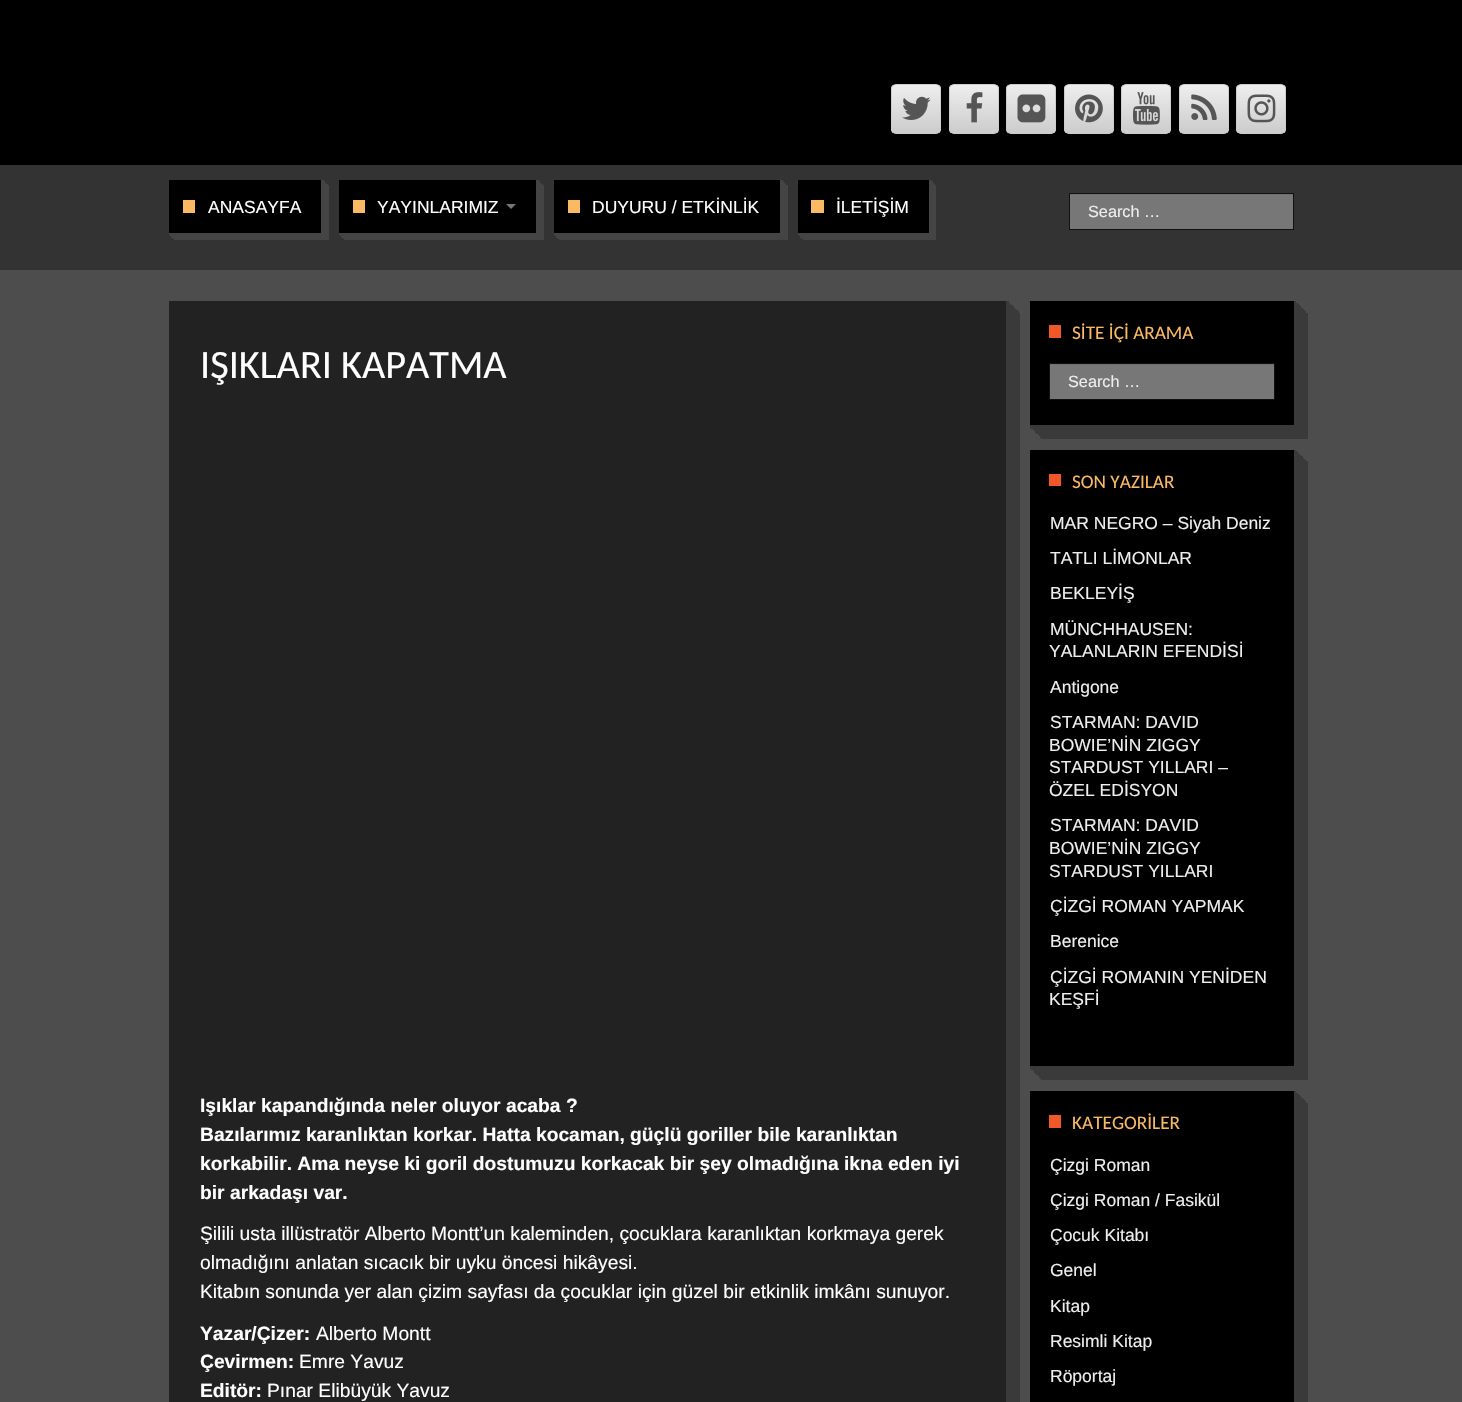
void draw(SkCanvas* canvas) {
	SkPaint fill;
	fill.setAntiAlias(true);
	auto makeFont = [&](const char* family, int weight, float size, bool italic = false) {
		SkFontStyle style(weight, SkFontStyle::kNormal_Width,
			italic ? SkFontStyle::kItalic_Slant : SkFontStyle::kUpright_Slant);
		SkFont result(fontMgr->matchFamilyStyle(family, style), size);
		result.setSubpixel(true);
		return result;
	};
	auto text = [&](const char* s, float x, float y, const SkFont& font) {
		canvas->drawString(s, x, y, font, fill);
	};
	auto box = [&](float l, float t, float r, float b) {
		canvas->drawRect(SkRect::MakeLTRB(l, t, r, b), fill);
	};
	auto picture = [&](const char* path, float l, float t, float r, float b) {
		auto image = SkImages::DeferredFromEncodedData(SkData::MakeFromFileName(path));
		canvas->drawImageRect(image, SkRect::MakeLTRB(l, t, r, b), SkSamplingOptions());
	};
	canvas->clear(0xFF4C4D4C);
	fill.setColor(0xFF000000);
	box(0, 0, 1462, 165);
	canvas->save();
	canvas->clipPath(SkPathBuilder().moveTo(896, 84).lineTo(936, 84).cubicTo(939, 84, 941, 86, 941, 89).lineTo(941, 129).cubicTo(941, 132, 939, 134, 936, 134).lineTo(896, 134).cubicTo(893, 134, 891, 132, 891, 129).lineTo(891, 89).cubicTo(891, 86, 893, 84, 896, 84).close().detach(), true);
	{
		const SkColor colors[] = {0xFFEEEEEE, 0xFFCCCCCC};
		const float stops[] = {0, 1};
		const SkPoint ends[] = {{916, 85}, {916, 133}};
		fill.setShader(SkGradientShader::MakeLinear(ends, colors, stops, 2, SkTileMode::kClamp));
		fill.setAlpha(255);
	}
	box(891, 85, 941, 133);
	canvas->restore();
	fill.setStyle(SkPaint::kStroke_Style);
	fill.setStrokeWidth(1);
	fill.setShader(nullptr);
	fill.setColor(0xFFCCCCCC);
	canvas->drawRoundRect(SkRect::MakeLTRB(891.5f, 84.5f, 940.5f, 133.5f), 4.5f, 4.5f, fill);
	picture("image0.png", 902, 96, 931, 120);
	canvas->save();
	canvas->clipPath(SkPathBuilder().moveTo(954, 84).lineTo(994, 84).cubicTo(997, 84, 999, 86, 999, 89).lineTo(999, 129).cubicTo(999, 132, 997, 134, 994, 134).lineTo(954, 134).cubicTo(951, 134, 949, 132, 949, 129).lineTo(949, 89).cubicTo(949, 86, 951, 84, 954, 84).close().detach(), true);
	fill.setStyle(SkPaint::kFill_Style);
	{
		const SkColor colors[] = {0xFFEEEEEE, 0xFFCCCCCC};
		const float stops[] = {0, 1};
		const SkPoint ends[] = {{974, 85}, {974, 133}};
		fill.setShader(SkGradientShader::MakeLinear(ends, colors, stops, 2, SkTileMode::kClamp));
		fill.setAlpha(255);
	}
	box(949, 85, 999, 133);
	canvas->restore();
	fill.setStyle(SkPaint::kStroke_Style);
	fill.setShader(nullptr);
	fill.setColor(0xFFCCCCCC);
	canvas->drawRoundRect(SkRect::MakeLTRB(949.5f, 84.5f, 998.5f, 133.5f), 4.5f, 4.5f, fill);
	picture("image1.png", 966, 92, 983, 123);
	canvas->save();
	canvas->clipPath(SkPathBuilder().moveTo(1011, 84).lineTo(1051, 84).cubicTo(1054, 84, 1056, 86, 1056, 89).lineTo(1056, 129).cubicTo(1056, 132, 1054, 134, 1051, 134).lineTo(1011, 134).cubicTo(1008, 134, 1006, 132, 1006, 129).lineTo(1006, 89).cubicTo(1006, 86, 1008, 84, 1011, 84).close().detach(), true);
	fill.setStyle(SkPaint::kFill_Style);
	{
		const SkColor colors[] = {0xFFEEEEEE, 0xFFCCCCCC};
		const float stops[] = {0, 1};
		const SkPoint ends[] = {{1031, 85}, {1031, 133}};
		fill.setShader(SkGradientShader::MakeLinear(ends, colors, stops, 2, SkTileMode::kClamp));
		fill.setAlpha(255);
	}
	box(1006, 85, 1056, 133);
	canvas->restore();
	fill.setStyle(SkPaint::kStroke_Style);
	fill.setShader(nullptr);
	fill.setColor(0xFFCCCCCC);
	canvas->drawRoundRect(SkRect::MakeLTRB(1006.5f, 84.5f, 1055.5f, 133.5f), 4.5f, 4.5f, fill);
	picture("image2.png", 1017, 94, 1046, 123);
	canvas->save();
	canvas->clipPath(SkPathBuilder().moveTo(1069, 84).lineTo(1109, 84).cubicTo(1112, 84, 1114, 86, 1114, 89).lineTo(1114, 129).cubicTo(1114, 132, 1112, 134, 1109, 134).lineTo(1069, 134).cubicTo(1066, 134, 1064, 132, 1064, 129).lineTo(1064, 89).cubicTo(1064, 86, 1066, 84, 1069, 84).close().detach(), true);
	fill.setStyle(SkPaint::kFill_Style);
	{
		const SkColor colors[] = {0xFFEEEEEE, 0xFFCCCCCC};
		const float stops[] = {0, 1};
		const SkPoint ends[] = {{1089, 85}, {1089, 133}};
		fill.setShader(SkGradientShader::MakeLinear(ends, colors, stops, 2, SkTileMode::kClamp));
		fill.setAlpha(255);
	}
	box(1064, 85, 1114, 133);
	canvas->restore();
	fill.setStyle(SkPaint::kStroke_Style);
	fill.setShader(nullptr);
	fill.setColor(0xFFCCCCCC);
	canvas->drawRoundRect(SkRect::MakeLTRB(1064.5f, 84.5f, 1113.5f, 133.5f), 4.5f, 4.5f, fill);
	picture("image3.png", 1075, 94, 1103, 123);
	canvas->save();
	canvas->clipPath(SkPathBuilder().moveTo(1126, 84).lineTo(1166, 84).cubicTo(1169, 84, 1171, 86, 1171, 89).lineTo(1171, 129).cubicTo(1171, 132, 1169, 134, 1166, 134).lineTo(1126, 134).cubicTo(1123, 134, 1121, 132, 1121, 129).lineTo(1121, 89).cubicTo(1121, 86, 1123, 84, 1126, 84).close().detach(), true);
	fill.setStyle(SkPaint::kFill_Style);
	{
		const SkColor colors[] = {0xFFEEEEEE, 0xFFCCCCCC};
		const float stops[] = {0, 1};
		const SkPoint ends[] = {{1146, 85}, {1146, 133}};
		fill.setShader(SkGradientShader::MakeLinear(ends, colors, stops, 2, SkTileMode::kClamp));
		fill.setAlpha(255);
	}
	box(1121, 85, 1171, 133);
	canvas->restore();
	fill.setStyle(SkPaint::kStroke_Style);
	fill.setShader(nullptr);
	fill.setColor(0xFFCCCCCC);
	canvas->drawRoundRect(SkRect::MakeLTRB(1121.5f, 84.5f, 1170.5f, 133.5f), 4.5f, 4.5f, fill);
	picture("image4.png", 1133, 92, 1160, 125);
	canvas->save();
	canvas->clipPath(SkPathBuilder().moveTo(1184, 84).lineTo(1224, 84).cubicTo(1227, 84, 1229, 86, 1229, 89).lineTo(1229, 129).cubicTo(1229, 132, 1227, 134, 1224, 134).lineTo(1184, 134).cubicTo(1181, 134, 1179, 132, 1179, 129).lineTo(1179, 89).cubicTo(1179, 86, 1181, 84, 1184, 84).close().detach(), true);
	fill.setStyle(SkPaint::kFill_Style);
	{
		const SkColor colors[] = {0xFFEEEEEE, 0xFFCCCCCC};
		const float stops[] = {0, 1};
		const SkPoint ends[] = {{1204, 85}, {1204, 133}};
		fill.setShader(SkGradientShader::MakeLinear(ends, colors, stops, 2, SkTileMode::kClamp));
		fill.setAlpha(255);
	}
	box(1179, 85, 1229, 133);
	canvas->restore();
	fill.setStyle(SkPaint::kStroke_Style);
	fill.setShader(nullptr);
	fill.setColor(0xFFCCCCCC);
	canvas->drawRoundRect(SkRect::MakeLTRB(1179.5f, 84.5f, 1228.5f, 133.5f), 4.5f, 4.5f, fill);
	picture("image5.png", 1191, 94, 1217, 120);
	canvas->save();
	canvas->clipPath(SkPathBuilder().moveTo(1241, 84).lineTo(1281, 84).cubicTo(1284, 84, 1286, 86, 1286, 89).lineTo(1286, 129).cubicTo(1286, 132, 1284, 134, 1281, 134).lineTo(1241, 134).cubicTo(1238, 134, 1236, 132, 1236, 129).lineTo(1236, 89).cubicTo(1236, 86, 1238, 84, 1241, 84).close().detach(), true);
	fill.setStyle(SkPaint::kFill_Style);
	{
		const SkColor colors[] = {0xFFEEEEEE, 0xFFCCCCCC};
		const float stops[] = {0, 1};
		const SkPoint ends[] = {{1261, 85}, {1261, 133}};
		fill.setShader(SkGradientShader::MakeLinear(ends, colors, stops, 2, SkTileMode::kClamp));
		fill.setAlpha(255);
	}
	box(1236, 85, 1286, 133);
	canvas->restore();
	fill.setStyle(SkPaint::kStroke_Style);
	fill.setShader(nullptr);
	fill.setColor(0xFFCCCCCC);
	canvas->drawRoundRect(SkRect::MakeLTRB(1236.5f, 84.5f, 1285.5f, 133.5f), 4.5f, 4.5f, fill);
	picture("image6.png", 1247, 94, 1276, 123);
	fill.setStyle(SkPaint::kFill_Style);
	fill.setColor(0xFF333333);
	box(0, 165, 1462, 270);
	fill.setColor(0xFF444444);
	canvas->drawPath(SkPathBuilder().moveTo(174, 232).lineTo(174, 240).lineTo(329, 240).lineTo(329, 185).lineTo(321, 185).lineTo(321, 232).close().detach(), fill);
	canvas->drawPath(SkPathBuilder().moveTo(173, 232).lineTo(173, 239).lineTo(328, 239).lineTo(328, 184).lineTo(321, 184).lineTo(321, 232).close().detach(), fill);
	canvas->drawPath(SkPathBuilder().moveTo(171, 232).lineTo(171, 238).lineTo(326, 238).lineTo(326, 183).lineTo(321, 183).lineTo(321, 232).close().detach(), fill);
	canvas->drawPath(SkPathBuilder().moveTo(170, 232).lineTo(170, 236).lineTo(325, 236).lineTo(325, 181).lineTo(321, 181).lineTo(321, 232).close().detach(), fill);
	canvas->drawPath(SkPathBuilder().moveTo(169, 232).lineTo(169, 235).lineTo(324, 235).lineTo(324, 180).lineTo(321, 180).lineTo(321, 232).close().detach(), fill);
	fill.setColor(0xFF000000);
	box(169, 180, 321, 233);
	fill.setColor(0xFFFBB963);
	box(183, 200, 195, 213);
	fill.setColor(0xFF444444);
	canvas->drawPath(SkPathBuilder().moveTo(344, 232).lineTo(344, 240).lineTo(544, 240).lineTo(544, 185).lineTo(536, 185).lineTo(536, 232).close().detach(), fill);
	canvas->drawPath(SkPathBuilder().moveTo(343, 232).lineTo(343, 239).lineTo(543, 239).lineTo(543, 184).lineTo(536, 184).lineTo(536, 232).close().detach(), fill);
	canvas->drawPath(SkPathBuilder().moveTo(341, 232).lineTo(341, 238).lineTo(541, 238).lineTo(541, 183).lineTo(536, 183).lineTo(536, 232).close().detach(), fill);
	canvas->drawPath(SkPathBuilder().moveTo(340, 232).lineTo(340, 236).lineTo(540, 236).lineTo(540, 181).lineTo(536, 181).lineTo(536, 232).close().detach(), fill);
	canvas->drawPath(SkPathBuilder().moveTo(339, 232).lineTo(339, 235).lineTo(539, 235).lineTo(539, 180).lineTo(536, 180).lineTo(536, 232).close().detach(), fill);
	fill.setColor(0xFF000000);
	box(339, 180, 536, 233);
	fill.setColor(0xFFFBB963);
	box(353, 200, 365, 213);
	fill.setColor(0xFF777777);
	canvas->drawPath(SkPathBuilder().moveTo(506, 204).lineTo(516, 204).lineTo(511, 209).close().detach(), fill);
	fill.setColor(0xFF444444);
	canvas->drawPath(SkPathBuilder().moveTo(559, 232).lineTo(559, 240).lineTo(788, 240).lineTo(788, 185).lineTo(780, 185).lineTo(780, 232).close().detach(), fill);
	canvas->drawPath(SkPathBuilder().moveTo(558, 232).lineTo(558, 239).lineTo(786, 239).lineTo(786, 184).lineTo(780, 184).lineTo(780, 232).close().detach(), fill);
	canvas->drawPath(SkPathBuilder().moveTo(556, 232).lineTo(556, 238).lineTo(785, 238).lineTo(785, 183).lineTo(780, 183).lineTo(780, 232).close().detach(), fill);
	canvas->drawPath(SkPathBuilder().moveTo(555, 232).lineTo(555, 236).lineTo(784, 236).lineTo(784, 181).lineTo(780, 181).lineTo(780, 232).close().detach(), fill);
	canvas->drawPath(SkPathBuilder().moveTo(554, 232).lineTo(554, 235).lineTo(783, 235).lineTo(783, 180).lineTo(780, 180).lineTo(780, 232).close().detach(), fill);
	fill.setColor(0xFF000000);
	box(554, 180, 780, 233);
	fill.setColor(0xFFFBB963);
	box(568, 200, 580, 213);
	fill.setColor(0xFF444444);
	canvas->drawPath(SkPathBuilder().moveTo(803, 232).lineTo(803, 240).lineTo(936, 240).lineTo(936, 185).lineTo(929, 185).lineTo(929, 232).close().detach(), fill);
	canvas->drawPath(SkPathBuilder().moveTo(801, 232).lineTo(801, 239).lineTo(935, 239).lineTo(935, 184).lineTo(929, 184).lineTo(929, 232).close().detach(), fill);
	canvas->drawPath(SkPathBuilder().moveTo(800, 232).lineTo(800, 238).lineTo(934, 238).lineTo(934, 183).lineTo(929, 183).lineTo(929, 232).close().detach(), fill);
	canvas->drawPath(SkPathBuilder().moveTo(799, 232).lineTo(799, 236).lineTo(933, 236).lineTo(933, 181).lineTo(929, 181).lineTo(929, 232).close().detach(), fill);
	canvas->drawPath(SkPathBuilder().moveTo(798, 232).lineTo(798, 235).lineTo(931, 235).lineTo(931, 180).lineTo(929, 180).lineTo(929, 232).close().detach(), fill);
	fill.setColor(0xFF000000);
	box(798, 180, 929, 233);
	fill.setColor(0xFFFBB963);
	box(811, 200, 824, 213);
	fill.setColor(0xFF777777);
	box(1070, 195, 1293, 229);
	fill.setColor(0xFF6E6E6E);
	box(1070, 194, 1293, 195);
	fill.setStyle(SkPaint::kStroke_Style);
	fill.setColor(0xFF111111);
	canvas->drawRect(SkRect::MakeLTRB(1069.5f, 193.5f, 1293.5f, 229.5f), fill);
	fill.setStyle(SkPaint::kFill_Style);
	fill.setColor(0xFF3A3A3A);
	canvas->drawPath(SkPathBuilder().moveTo(180, 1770).lineTo(180, 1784).lineTo(1020, 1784).lineTo(1020, 313).lineTo(1006, 313).lineTo(1006, 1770).close().detach(), fill);
	canvas->drawPath(SkPathBuilder().moveTo(179, 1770).lineTo(179, 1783).lineTo(1019, 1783).lineTo(1019, 311).lineTo(1006, 311).lineTo(1006, 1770).close().detach(), fill);
	canvas->drawPath(SkPathBuilder().moveTo(178, 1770).lineTo(178, 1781).lineTo(1018, 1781).lineTo(1018, 310).lineTo(1006, 310).lineTo(1006, 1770).close().detach(), fill);
	canvas->drawPath(SkPathBuilder().moveTo(176, 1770).lineTo(176, 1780).lineTo(1016, 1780).lineTo(1016, 309).lineTo(1006, 309).lineTo(1006, 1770).close().detach(), fill);
	canvas->drawPath(SkPathBuilder().moveTo(175, 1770).lineTo(175, 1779).lineTo(1015, 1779).lineTo(1015, 308).lineTo(1006, 308).lineTo(1006, 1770).close().detach(), fill);
	canvas->drawPath(SkPathBuilder().moveTo(174, 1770).lineTo(174, 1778).lineTo(1014, 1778).lineTo(1014, 306).lineTo(1006, 306).lineTo(1006, 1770).close().detach(), fill);
	canvas->drawPath(SkPathBuilder().moveTo(173, 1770).lineTo(173, 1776).lineTo(1013, 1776).lineTo(1013, 305).lineTo(1006, 305).lineTo(1006, 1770).close().detach(), fill);
	canvas->drawPath(SkPathBuilder().moveTo(171, 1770).lineTo(171, 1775).lineTo(1011, 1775).lineTo(1011, 304).lineTo(1006, 304).lineTo(1006, 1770).close().detach(), fill);
	canvas->drawPath(SkPathBuilder().moveTo(170, 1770).lineTo(170, 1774).lineTo(1010, 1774).lineTo(1010, 303).lineTo(1006, 303).lineTo(1006, 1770).close().detach(), fill);
	canvas->drawPath(SkPathBuilder().moveTo(169, 301).lineTo(1006, 301).lineTo(1006, 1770).lineTo(169, 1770).lineTo(169, 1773).lineTo(1009, 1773).lineTo(1009, 301).close().detach(), fill);
	fill.setColor(0xFF222222);
	box(169, 301, 1006, 1402);
	fill.setColor(0xFF3A3A3A);
	canvas->drawPath(SkPathBuilder().moveTo(1041, 425).lineTo(1041, 439).lineTo(1308, 439).lineTo(1308, 313).lineTo(1294, 313).lineTo(1294, 425).close().detach(), fill);
	canvas->drawPath(SkPathBuilder().moveTo(1040, 425).lineTo(1040, 438).lineTo(1306, 438).lineTo(1306, 311).lineTo(1294, 311).lineTo(1294, 425).close().detach(), fill);
	canvas->drawPath(SkPathBuilder().moveTo(1039, 425).lineTo(1039, 436).lineTo(1305, 436).lineTo(1305, 310).lineTo(1294, 310).lineTo(1294, 425).close().detach(), fill);
	canvas->drawPath(SkPathBuilder().moveTo(1038, 425).lineTo(1038, 435).lineTo(1304, 435).lineTo(1304, 309).lineTo(1294, 309).lineTo(1294, 425).close().detach(), fill);
	canvas->drawPath(SkPathBuilder().moveTo(1036, 425).lineTo(1036, 434).lineTo(1303, 434).lineTo(1303, 308).lineTo(1294, 308).lineTo(1294, 425).close().detach(), fill);
	canvas->drawPath(SkPathBuilder().moveTo(1035, 425).lineTo(1035, 433).lineTo(1301, 433).lineTo(1301, 306).lineTo(1294, 306).lineTo(1294, 425).close().detach(), fill);
	canvas->drawPath(SkPathBuilder().moveTo(1034, 425).lineTo(1034, 431).lineTo(1300, 431).lineTo(1300, 305).lineTo(1294, 305).lineTo(1294, 425).close().detach(), fill);
	canvas->drawPath(SkPathBuilder().moveTo(1033, 425).lineTo(1033, 430).lineTo(1299, 430).lineTo(1299, 304).lineTo(1294, 304).lineTo(1294, 425).close().detach(), fill);
	canvas->drawPath(SkPathBuilder().moveTo(1031, 425).lineTo(1031, 429).lineTo(1298, 429).lineTo(1298, 303).lineTo(1294, 303).lineTo(1294, 425).close().detach(), fill);
	canvas->drawPath(SkPathBuilder().moveTo(1030, 301).lineTo(1294, 301).lineTo(1294, 425).lineTo(1030, 425).lineTo(1030, 428).lineTo(1296, 428).lineTo(1296, 301).close().detach(), fill);
	fill.setColor(0xFF000000);
	box(1030, 301, 1294, 425);
	fill.setColor(0xFFF05927);
	box(1049, 325, 1061, 338);
	fill.setColor(0xFF777777);
	box(1050, 365, 1274, 399);
	fill.setColor(0xFF6E6E6E);
	box(1050, 364, 1274, 365);
	fill.setStyle(SkPaint::kStroke_Style);
	fill.setColor(0xFF111111);
	canvas->drawRect(SkRect::MakeLTRB(1049.5f, 363.5f, 1274.5f, 399.5f), fill);
	fill.setStyle(SkPaint::kFill_Style);
	fill.setColor(0xFF3A3A3A);
	canvas->drawPath(SkPathBuilder().moveTo(1041, 1066).lineTo(1041, 1080).lineTo(1308, 1080).lineTo(1308, 461).lineTo(1294, 461).lineTo(1294, 1066).close().detach(), fill);
	canvas->drawPath(SkPathBuilder().moveTo(1040, 1066).lineTo(1040, 1079).lineTo(1306, 1079).lineTo(1306, 460).lineTo(1294, 460).lineTo(1294, 1066).close().detach(), fill);
	canvas->drawPath(SkPathBuilder().moveTo(1039, 1066).lineTo(1039, 1078).lineTo(1305, 1078).lineTo(1305, 459).lineTo(1294, 459).lineTo(1294, 1066).close().detach(), fill);
	canvas->drawPath(SkPathBuilder().moveTo(1038, 1066).lineTo(1038, 1076).lineTo(1304, 1076).lineTo(1304, 458).lineTo(1294, 458).lineTo(1294, 1066).close().detach(), fill);
	canvas->drawPath(SkPathBuilder().moveTo(1036, 1066).lineTo(1036, 1075).lineTo(1303, 1075).lineTo(1303, 456).lineTo(1294, 456).lineTo(1294, 1066).close().detach(), fill);
	canvas->drawPath(SkPathBuilder().moveTo(1035, 1066).lineTo(1035, 1074).lineTo(1301, 1074).lineTo(1301, 455).lineTo(1294, 455).lineTo(1294, 1066).close().detach(), fill);
	canvas->drawPath(SkPathBuilder().moveTo(1034, 1066).lineTo(1034, 1073).lineTo(1300, 1073).lineTo(1300, 454).lineTo(1294, 454).lineTo(1294, 1066).close().detach(), fill);
	canvas->drawPath(SkPathBuilder().moveTo(1033, 1066).lineTo(1033, 1071).lineTo(1299, 1071).lineTo(1299, 453).lineTo(1294, 453).lineTo(1294, 1066).close().detach(), fill);
	canvas->drawPath(SkPathBuilder().moveTo(1031, 1066).lineTo(1031, 1070).lineTo(1298, 1070).lineTo(1298, 451).lineTo(1294, 451).lineTo(1294, 1066).close().detach(), fill);
	canvas->drawPath(SkPathBuilder().moveTo(1296, 450).lineTo(1294, 450).lineTo(1294, 1066).lineTo(1030, 1066).lineTo(1030, 1069).lineTo(1296, 1069).close().detach(), fill);
	fill.setColor(0xFF000000);
	box(1030, 450, 1294, 1066);
	fill.setColor(0xFFF05927);
	box(1049, 474, 1061, 486);
	fill.setColor(0xFF3A3A3A);
	canvas->drawPath(SkPathBuilder().moveTo(1041, 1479).lineTo(1041, 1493).lineTo(1308, 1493).lineTo(1308, 1103).lineTo(1294, 1103).lineTo(1294, 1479).close().detach(), fill);
	canvas->drawPath(SkPathBuilder().moveTo(1040, 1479).lineTo(1040, 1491).lineTo(1306, 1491).lineTo(1306, 1101).lineTo(1294, 1101).lineTo(1294, 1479).close().detach(), fill);
	canvas->drawPath(SkPathBuilder().moveTo(1039, 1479).lineTo(1039, 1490).lineTo(1305, 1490).lineTo(1305, 1100).lineTo(1294, 1100).lineTo(1294, 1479).close().detach(), fill);
	canvas->drawPath(SkPathBuilder().moveTo(1038, 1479).lineTo(1038, 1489).lineTo(1304, 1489).lineTo(1304, 1099).lineTo(1294, 1099).lineTo(1294, 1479).close().detach(), fill);
	canvas->drawPath(SkPathBuilder().moveTo(1036, 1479).lineTo(1036, 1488).lineTo(1303, 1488).lineTo(1303, 1098).lineTo(1294, 1098).lineTo(1294, 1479).close().detach(), fill);
	canvas->drawPath(SkPathBuilder().moveTo(1035, 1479).lineTo(1035, 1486).lineTo(1301, 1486).lineTo(1301, 1096).lineTo(1294, 1096).lineTo(1294, 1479).close().detach(), fill);
	canvas->drawPath(SkPathBuilder().moveTo(1034, 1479).lineTo(1034, 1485).lineTo(1300, 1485).lineTo(1300, 1095).lineTo(1294, 1095).lineTo(1294, 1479).close().detach(), fill);
	canvas->drawPath(SkPathBuilder().moveTo(1033, 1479).lineTo(1033, 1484).lineTo(1299, 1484).lineTo(1299, 1094).lineTo(1294, 1094).lineTo(1294, 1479).close().detach(), fill);
	canvas->drawPath(SkPathBuilder().moveTo(1031, 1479).lineTo(1031, 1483).lineTo(1298, 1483).lineTo(1298, 1093).lineTo(1294, 1093).lineTo(1294, 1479).close().detach(), fill);
	canvas->drawPath(SkPathBuilder().moveTo(1030, 1091).lineTo(1294, 1091).lineTo(1294, 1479).lineTo(1030, 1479).lineTo(1030, 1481).lineTo(1296, 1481).lineTo(1296, 1091).close().detach(), fill);
	fill.setColor(0xFF000000);
	box(1030, 1091, 1294, 1402);
	fill.setColor(0xFFF05927);
	box(1049, 1115, 1061, 1128);
	auto font1 = makeFont("Liberation Sans", 400, 17.5f);
	fill.setColor(0xFFFFFFFF);
	text("ANASAYFA", 208, 213, font1);
	text("YAYINLARIMIZ", 377, 213, font1);
	text("DUYURU / ETKİNLİK", 592, 213, font1);
	text("İLETİŞİM", 836, 213, font1);
	auto font2 = makeFont("Liberation Sans", 400, 16.25f);
	fill.setColor(0xFFEEEEEE);
	text("Search …", 1088, 217, font2);
	auto font3 = makeFont("Carlito", 400, 40.25f);
	fill.setColor(0xFFFFFFFF);
	text("IŞIKLARI KAPATMA", 200, 378, font3);
	auto font4 = makeFont("Liberation Sans", 700, 19.25f);
	text("Işıklar kapandığında neler oluyor acaba ?", 200, 1112, font4);
	text("Bazılarımız karanlıktan korkar. Hatta kocaman, güçlü goriller bile karanlıktan", 200, 1141, font4);
	text("korkabilir. Ama neyse ki goril dostumuzu korkacak bir şey olmadığına ikna eden iyi", 200, 1170, font4);
	text("bir arkadaşı var.", 200, 1199, font4);
	auto font5 = makeFont("Liberation Sans", 400, 19.25f);
	text("Şilili usta illüstratör Alberto Montt’un kaleminden, çocuklara karanlıktan korkmaya gerek", 200, 1240, font5);
	text("olmadığını anlatan sıcacık bir uyku öncesi hikâyesi.", 200, 1269, font5);
	text("Kitabın sonunda yer alan çizim sayfası da çocuklar için güzel bir etkinlik imkânı sunuyor.", 200, 1298, font5);
	text("Yazar/Çizer:", 200, 1340, font4);
	text("Alberto Montt", 316, 1340, font5);
	text("Çevirmen:", 200, 1368, font4);
	text("Emre Yavuz", 299, 1368, font5);
	text("Editör:", 200, 1397, font4);
	text("Pınar Elibüyük Yavuz", 267, 1397, font5);
	auto font6 = makeFont("Carlito", 400, 19.25f);
	fill.setColor(0xFFFBB963);
	text("SİTE İÇİ ARAMA", 1072, 339, font6);
	fill.setColor(0xFFEEEEEE);
	text("Search …", 1068, 387, font2);
	fill.setColor(0xFFFBB963);
	text("SON YAZILAR", 1072, 488, font6);
	fill.setColor(0xFFEEEEEE);
	text("MAR NEGRO – Siyah Deniz", 1050, 529, font1);
	text("TATLI LİMONLAR", 1050, 564, font1);
	text("BEKLEYİŞ", 1050, 599, font1);
	text("MÜNCHHAUSEN:", 1050, 635, font1);
	text("YALANLARIN EFENDİSİ", 1049, 657, font1);
	text("Antigone", 1050, 693, font1);
	text("STARMAN: DAVID", 1050, 728, font1);
	text("BOWIE’NİN ZIGGY", 1049, 751, font1);
	text("STARDUST YILLARI –", 1049, 773, font1);
	text("ÖZEL EDİSYON", 1049, 796, font1);
	text("STARMAN: DAVID", 1050, 831, font1);
	text("BOWIE’NİN ZIGGY", 1049, 854, font1);
	text("STARDUST YILLARI", 1049, 877, font1);
	text("ÇİZGİ ROMAN YAPMAK", 1050, 912, font1);
	text("Berenice", 1050, 947, font1);
	text("ÇİZGİ ROMANIN YENİDEN", 1050, 983, font1);
	text("KEŞFİ", 1049, 1005, font1);
	fill.setColor(0xFFFBB963);
	text("KATEGORİLER", 1072, 1129, font6);
	fill.setColor(0xFFEEEEEE);
	text("Çizgi Roman", 1050, 1171, font1);
	text("Çizgi Roman / Fasikül", 1050, 1206, font1);
	text("Çocuk Kitabı", 1050, 1241, font1);
	text("Genel", 1050, 1276, font1);
	text("Kitap", 1050, 1312, font1);
	text("Resimli Kitap", 1050, 1347, font1);
	text("Röportaj", 1050, 1382, font1);
}
